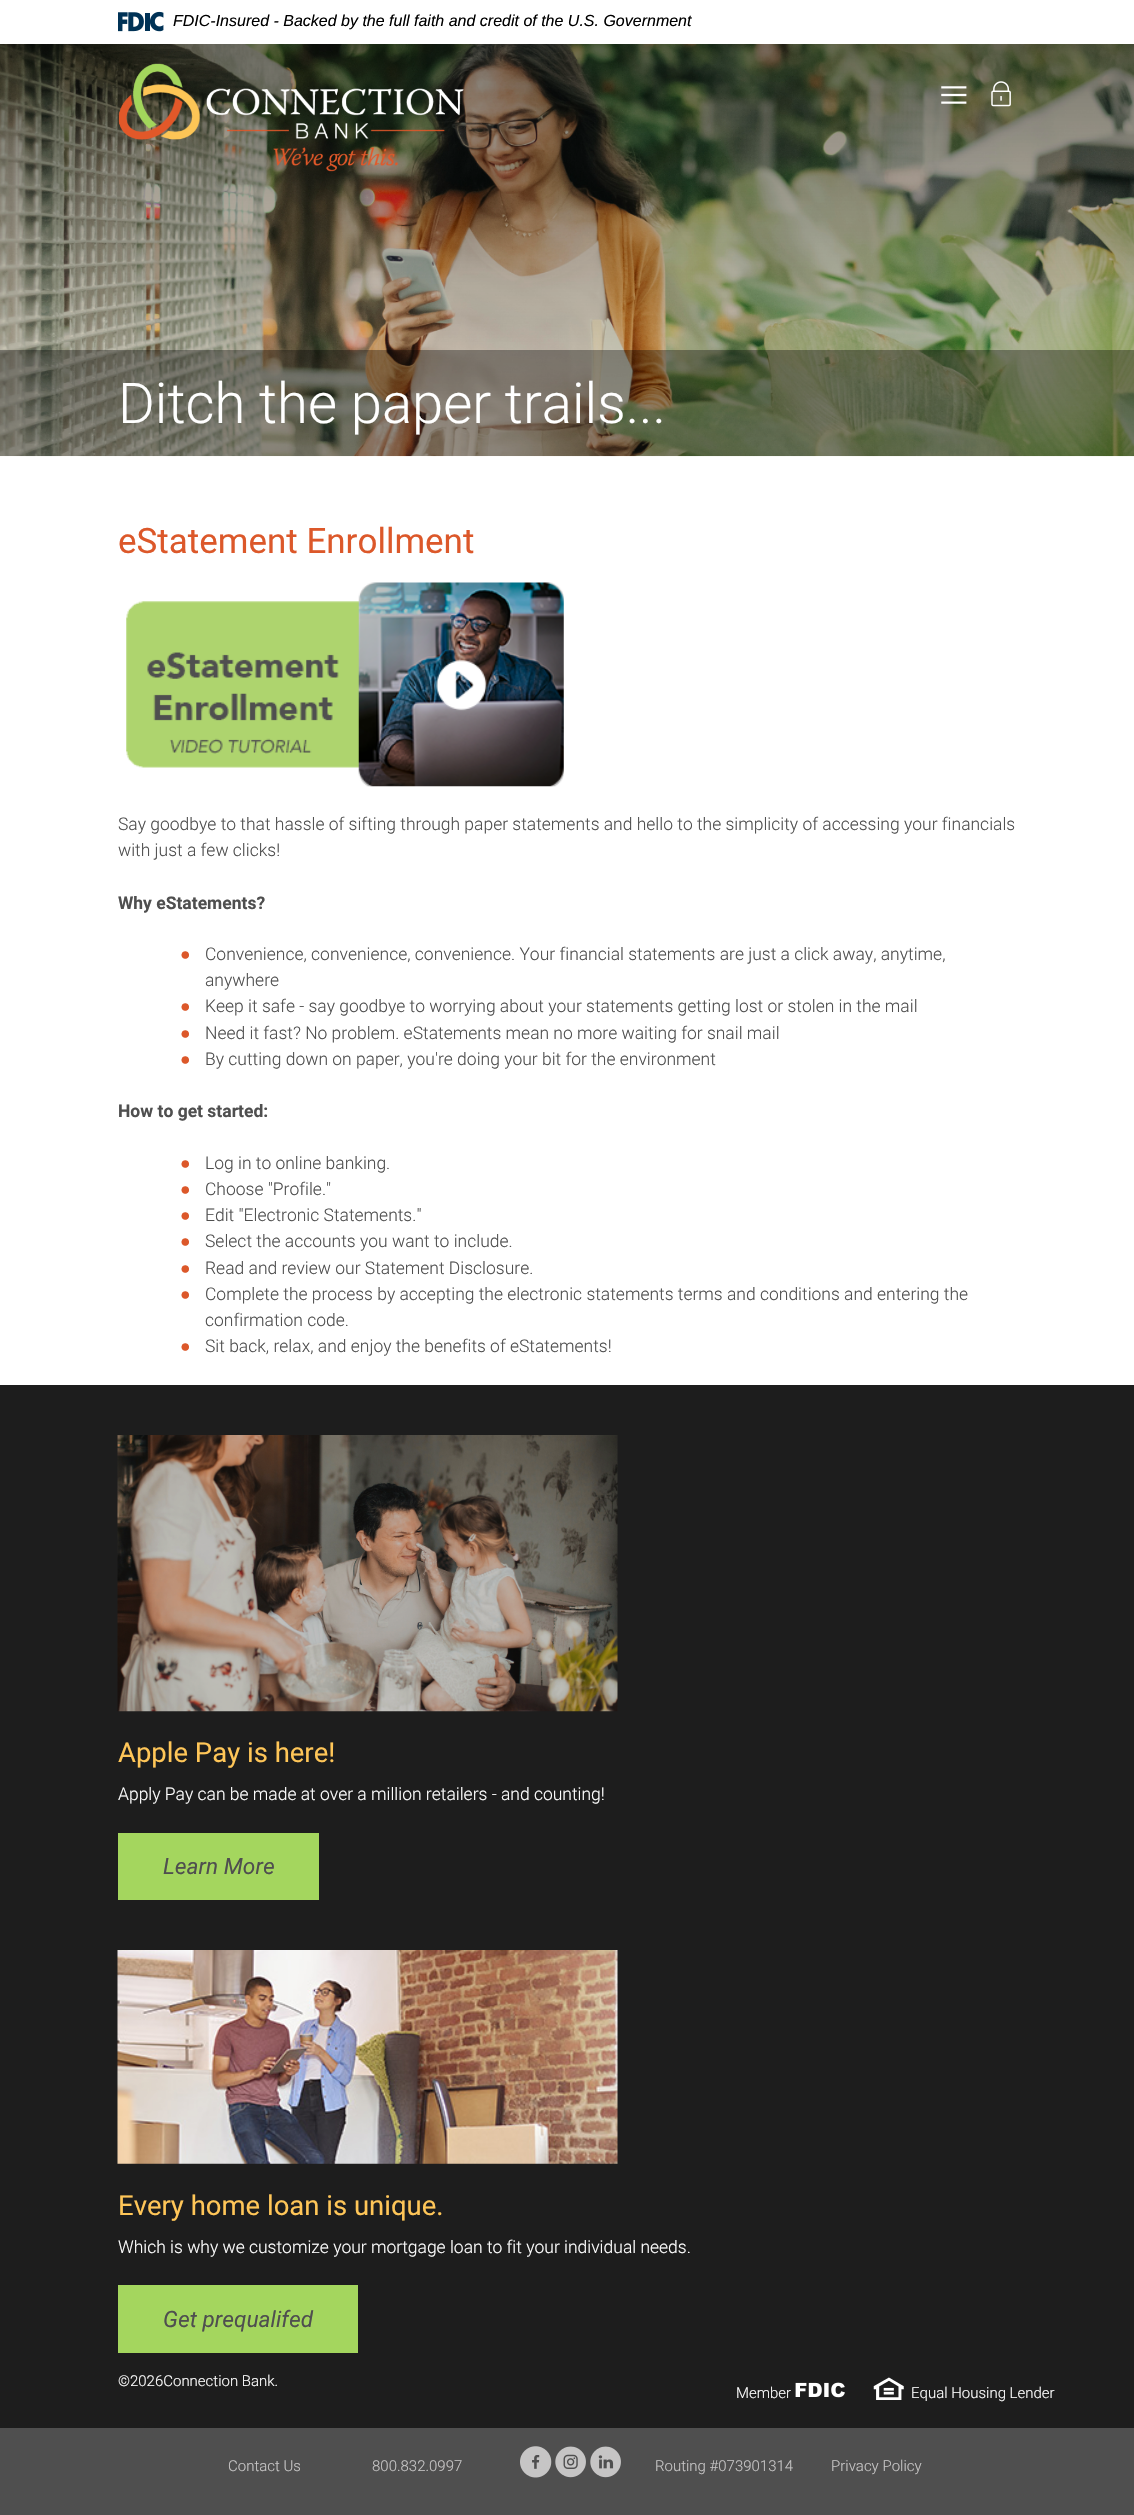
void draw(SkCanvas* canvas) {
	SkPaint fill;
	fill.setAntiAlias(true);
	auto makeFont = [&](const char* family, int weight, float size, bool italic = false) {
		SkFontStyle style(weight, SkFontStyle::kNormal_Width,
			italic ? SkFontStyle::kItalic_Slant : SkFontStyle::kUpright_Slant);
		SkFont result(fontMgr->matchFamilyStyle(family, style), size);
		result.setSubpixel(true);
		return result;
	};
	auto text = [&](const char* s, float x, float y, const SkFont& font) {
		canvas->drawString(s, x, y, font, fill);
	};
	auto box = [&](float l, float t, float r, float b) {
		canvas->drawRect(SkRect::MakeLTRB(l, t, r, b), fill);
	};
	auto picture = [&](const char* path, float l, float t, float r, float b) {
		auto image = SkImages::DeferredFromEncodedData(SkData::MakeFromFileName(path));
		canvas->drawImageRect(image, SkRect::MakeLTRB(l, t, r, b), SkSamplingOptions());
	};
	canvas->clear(0xFFFFFFFF);
	picture("image0.png", 118, 11, 164, 32);
	picture("image4.png", 0, 44, 1134, 457);
	picture("image1.png", 118, 63, 464, 172);
	picture("image2.png", 941, 86, 967, 104);
	picture("image3.png", 991, 81, 1011, 107);
	fill.setColor(0x59000000);
	box(0, 350, 1134, 456);
	picture("image5.png", 126, 582, 564, 787);
	fill.setColor(0xFF1D1D1D);
	box(0, 1385, 1134, 2428);
	picture("image6.png", 117, 1435, 618, 1712);
	fill.setColor(0xFFA4D65E);
	box(118, 1833, 319, 1900);
	picture("image7.png", 117, 1950, 618, 2164);
	box(118, 2285, 358, 2353);
	fill.setColor(0xFF4F4F4F);
	box(0, 2428, 1134, 2515);
	picture("image8.png", 795, 2382, 845, 2398);
	picture("image9.png", 873, 2377, 904, 2400);
	picture("image10.png", 520, 2446, 552, 2478);
	picture("image11.png", 555, 2446, 586, 2478);
	picture("image12.png", 590, 2446, 621, 2478);
	auto font1 = makeFont("Liberation Sans", 400, 16, true);
	fill.setColor(0xFF000000);
	text("FDIC-Insured - Backed by the full faith and credit of the U.S. Government", 173, 26, font1);
	auto font2 = makeFont("Roboto", 300, 56.25f);
	fill.setColor(0xFFFFFFFF);
	text("Ditch the paper trails...", 118, 423, font2);
	auto font3 = makeFont("Roboto", 400, 35);
	fill.setColor(0xFFDC582A);
	text("eStatement Enrollment", 118, 553, font3);
	auto font4 = makeFont("Roboto", 300, 17.5f);
	fill.setColor(0xFF4F4F4F);
	text("Say goodbye to that hassle of sifting through paper statements and hello to the simplicity of accessing your financials", 118, 830, font4);
	text("with just a few clicks!", 118, 856, font4);
	auto font5 = makeFont("Roboto", 700, 17.5f);
	text("Why eStatements?", 118, 909, font5);
	auto font6 = makeFont("Liberation Sans", 400, 17.5f);
	fill.setColor(0xFFDC582A);
	text("●", 180, 960, font6);
	fill.setColor(0xFF4F4F4F);
	text("Convenience, convenience, convenience. Your financial statements are just a click away, anytime,", 205, 960, font4);
	text("anywhere", 205, 986, font4);
	fill.setColor(0xFFDC582A);
	text("●", 180, 1012, font6);
	fill.setColor(0xFF4F4F4F);
	text("Keep it safe - say goodbye to worrying about your statements getting lost or stolen in the mail", 205, 1012, font4);
	fill.setColor(0xFFDC582A);
	text("●", 180, 1039, font6);
	fill.setColor(0xFF4F4F4F);
	text("Need it fast? No problem. eStatements mean no more waiting for snail mail", 205, 1039, font4);
	fill.setColor(0xFFDC582A);
	text("●", 180, 1065, font6);
	fill.setColor(0xFF4F4F4F);
	text("By cutting down on paper, you're doing your bit for the environment", 205, 1065, font4);
	text("How to get started:", 118, 1117, font5);
	fill.setColor(0xFFDC582A);
	text("●", 180, 1169, font6);
	fill.setColor(0xFF4F4F4F);
	text("Log in to online banking.", 205, 1169, font4);
	fill.setColor(0xFFDC582A);
	text("●", 180, 1195, font6);
	fill.setColor(0xFF4F4F4F);
	text("Choose \"Profile.\"", 205, 1195, font4);
	fill.setColor(0xFFDC582A);
	text("●", 180, 1221, font6);
	fill.setColor(0xFF4F4F4F);
	text("Edit \"Electronic Statements.\"", 205, 1221, font4);
	fill.setColor(0xFFDC582A);
	text("●", 180, 1247, font6);
	fill.setColor(0xFF4F4F4F);
	text("Select the accounts you want to include.", 205, 1247, font4);
	fill.setColor(0xFFDC582A);
	text("●", 180, 1274, font6);
	fill.setColor(0xFF4F4F4F);
	text("Read and review our Statement Disclosure.", 205, 1274, font4);
	fill.setColor(0xFFDC582A);
	text("●", 180, 1300, font6);
	fill.setColor(0xFF4F4F4F);
	text("Complete the process by accepting the electronic statements terms and conditions and entering the", 205, 1300, font4);
	text("confirmation code.", 205, 1326, font4);
	fill.setColor(0xFFDC582A);
	text("●", 180, 1352, font6);
	fill.setColor(0xFF4F4F4F);
	text("Sit back, relax, and enjoy the benefits of eStatements!", 205, 1352, font4);
	auto font7 = makeFont("Roboto", 400, 27.5f);
	fill.setColor(0xFFFFC658);
	text("Apple Pay is here!", 118, 1762, font7);
	fill.setColor(0xFFFFFFFF);
	text("Apply Pay can be made at over a million retailers - and counting!", 118, 1800, font4);
	auto font8 = makeFont("Roboto", 400, 22.5f, true);
	fill.setColor(0xFF4F4F4F);
	text("Learn More", 163, 1874, font8);
	fill.setColor(0xFFFFC658);
	text("Every home loan is unique.", 118, 2215, font7);
	fill.setColor(0xFFFFFFFF);
	text("Which is why we customize your mortgage loan to fit your individual needs.", 118, 2253, font4);
	fill.setColor(0xFF4F4F4F);
	text("Get prequalifed", 163, 2327, font8);
	auto font9 = makeFont("Roboto", 300, 15);
	fill.setColor(0xFFFFFFFF);
	text("©2026Connection Bank.", 118, 2386, font9);
	text("Member", 736, 2398, font9);
	text("Equal Housing Lender", 911, 2398, font9);
	fill.setColor(0xFFC6C5C5);
	text("Contact Us", 228, 2471, font9);
	text("800.832.0997", 372, 2471, font9);
	text("Routing #073901314", 655, 2471, font9);
	text("Privacy Policy", 831, 2471, font9);
}
